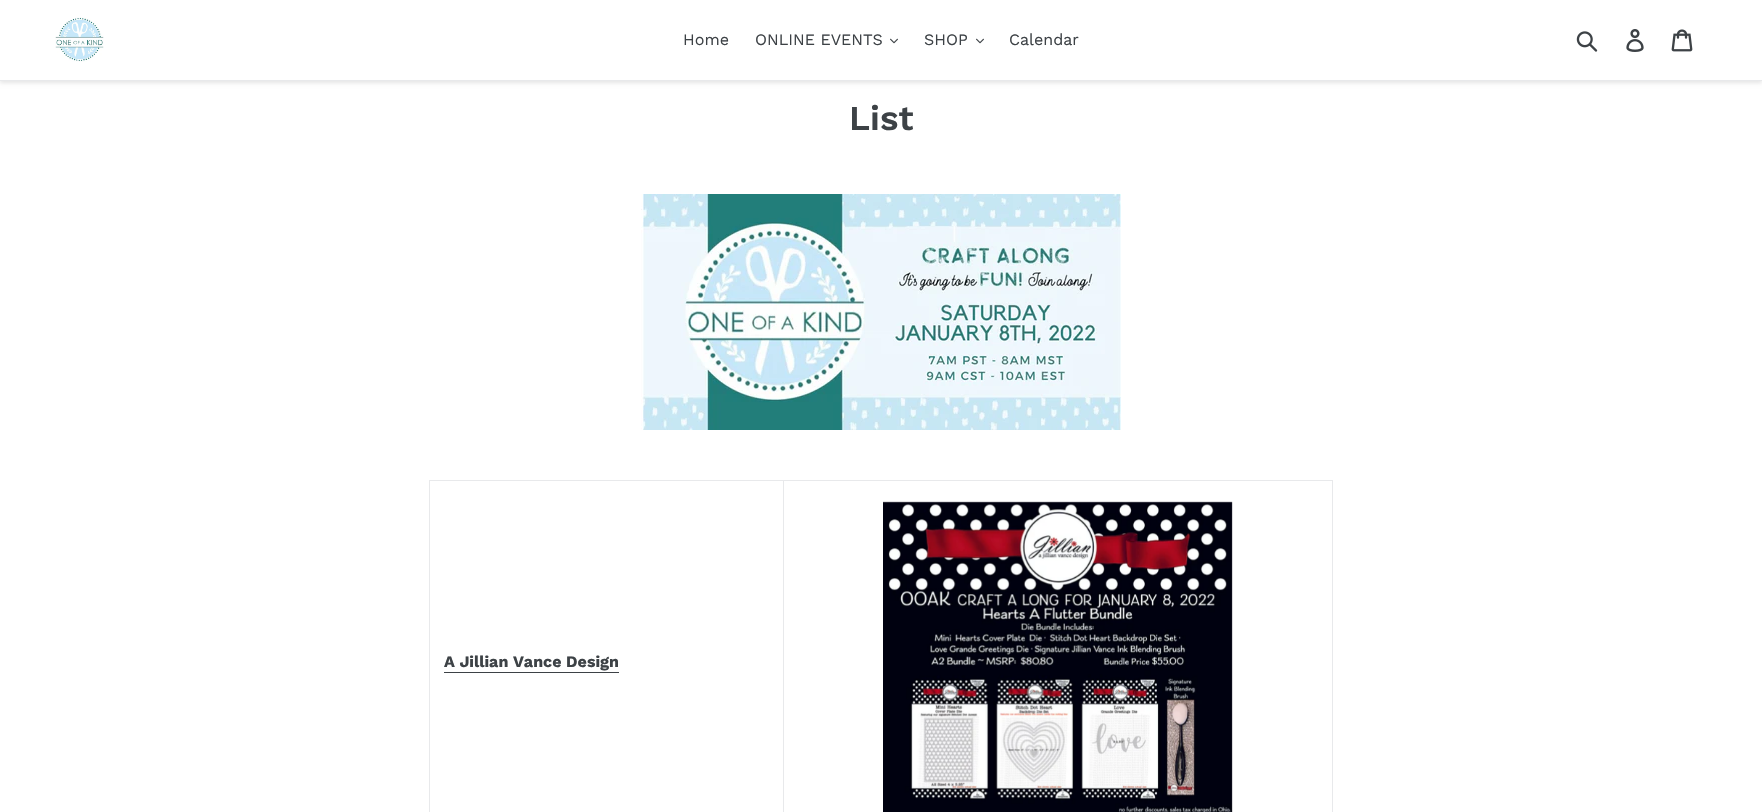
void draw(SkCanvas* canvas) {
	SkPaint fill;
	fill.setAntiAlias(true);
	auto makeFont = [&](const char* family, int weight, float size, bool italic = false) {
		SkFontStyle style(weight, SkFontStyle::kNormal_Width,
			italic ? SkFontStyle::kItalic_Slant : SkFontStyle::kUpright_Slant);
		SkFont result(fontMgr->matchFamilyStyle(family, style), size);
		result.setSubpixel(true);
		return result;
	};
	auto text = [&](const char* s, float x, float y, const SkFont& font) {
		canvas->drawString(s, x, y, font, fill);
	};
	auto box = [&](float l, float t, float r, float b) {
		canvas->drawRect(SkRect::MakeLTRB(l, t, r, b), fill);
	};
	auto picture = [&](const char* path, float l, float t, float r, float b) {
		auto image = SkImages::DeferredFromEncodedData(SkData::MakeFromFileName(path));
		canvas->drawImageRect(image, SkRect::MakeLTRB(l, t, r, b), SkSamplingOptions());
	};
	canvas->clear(0xFFFFFFFF);
	fill.setColor(0x1A000000);
	fill.setMaskFilter(SkMaskFilter::MakeBlur(kNormal_SkBlurStyle, 2));
	canvas->drawRect(SkRect::MakeLTRB(0, 2, 1762, 83), fill);
	fill.setMaskFilter(nullptr);
	fill.setColor(0xFFFFFFFF);
	box(0, 0, 1762, 80);
	fill.setColor(0xFFE8E9EB);
	box(0, 80, 1762, 81);
	picture("image0.png", 55, 17, 104, 62);
	picture("image1.png", 890, 38, 898, 44);
	picture("image1.png", 976, 38, 984, 44);
	picture("image2.png", 1576, 31, 1598, 52);
	picture("image3.png", 1626, 29, 1644, 52);
	picture("image4.png", 1671, 29, 1693, 52);
	picture("image5.png", 641, 194, 1121, 430);
	box(783, 480, 1333, 481);
	box(783, 480, 784, 812);
	box(429, 480, 784, 481);
	box(429, 480, 430, 812);
	fill.setColor(0xFF3D4246);
	box(444, 672, 619, 673);
	fill.setColor(0xFFE8E9EB);
	box(1332, 480, 1333, 812);
	picture("image6.png", 883, 501, 1233, 812);
	auto font1 = makeFont("Work Sans", 400, 16);
	fill.setColor(0xFF3D4246);
	text("Home", 683, 45, font1);
	text("ONLINE EVENTS", 755, 45, font1);
	text("SHOP", 924, 45, font1);
	text("Calendar", 1009, 45, font1);
	auto font2 = makeFont("Work Sans", 600, 35);
	text("List", 849, 130, font2);
	auto font3 = makeFont("Work Sans", 700, 16);
	text("A Jillian Vance Design", 444, 667, font3);
}
